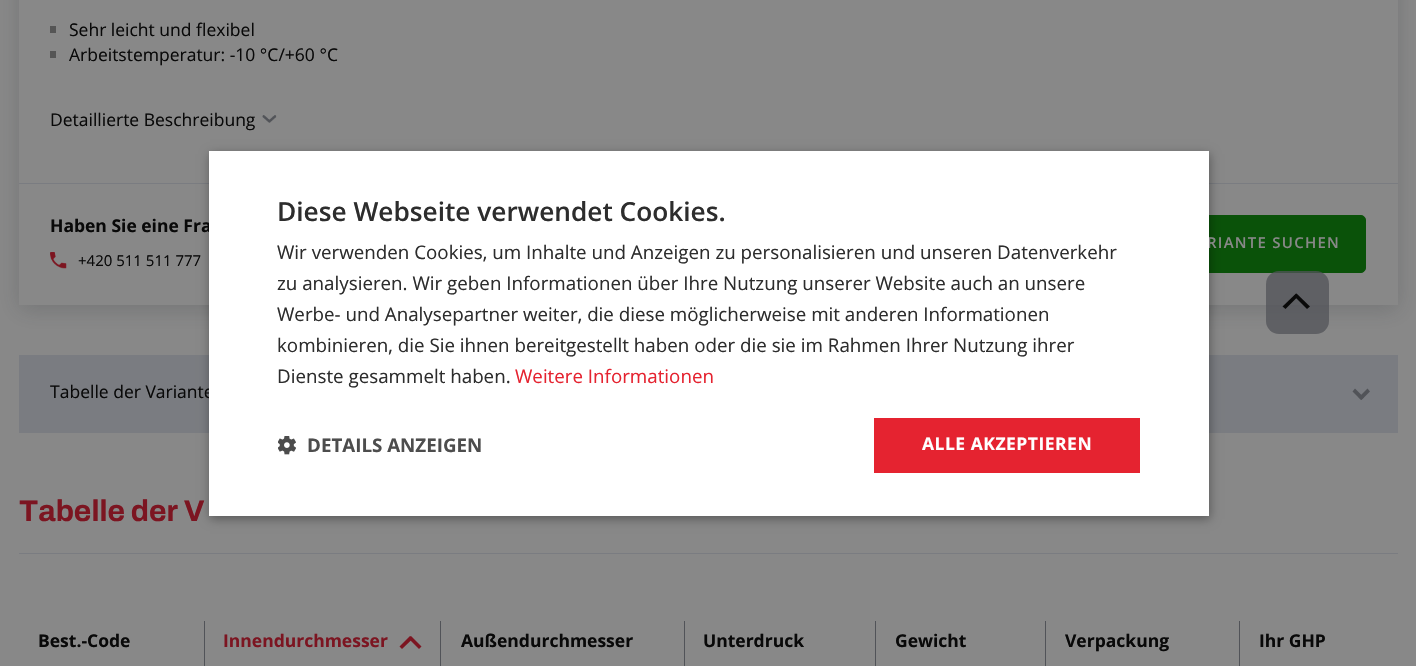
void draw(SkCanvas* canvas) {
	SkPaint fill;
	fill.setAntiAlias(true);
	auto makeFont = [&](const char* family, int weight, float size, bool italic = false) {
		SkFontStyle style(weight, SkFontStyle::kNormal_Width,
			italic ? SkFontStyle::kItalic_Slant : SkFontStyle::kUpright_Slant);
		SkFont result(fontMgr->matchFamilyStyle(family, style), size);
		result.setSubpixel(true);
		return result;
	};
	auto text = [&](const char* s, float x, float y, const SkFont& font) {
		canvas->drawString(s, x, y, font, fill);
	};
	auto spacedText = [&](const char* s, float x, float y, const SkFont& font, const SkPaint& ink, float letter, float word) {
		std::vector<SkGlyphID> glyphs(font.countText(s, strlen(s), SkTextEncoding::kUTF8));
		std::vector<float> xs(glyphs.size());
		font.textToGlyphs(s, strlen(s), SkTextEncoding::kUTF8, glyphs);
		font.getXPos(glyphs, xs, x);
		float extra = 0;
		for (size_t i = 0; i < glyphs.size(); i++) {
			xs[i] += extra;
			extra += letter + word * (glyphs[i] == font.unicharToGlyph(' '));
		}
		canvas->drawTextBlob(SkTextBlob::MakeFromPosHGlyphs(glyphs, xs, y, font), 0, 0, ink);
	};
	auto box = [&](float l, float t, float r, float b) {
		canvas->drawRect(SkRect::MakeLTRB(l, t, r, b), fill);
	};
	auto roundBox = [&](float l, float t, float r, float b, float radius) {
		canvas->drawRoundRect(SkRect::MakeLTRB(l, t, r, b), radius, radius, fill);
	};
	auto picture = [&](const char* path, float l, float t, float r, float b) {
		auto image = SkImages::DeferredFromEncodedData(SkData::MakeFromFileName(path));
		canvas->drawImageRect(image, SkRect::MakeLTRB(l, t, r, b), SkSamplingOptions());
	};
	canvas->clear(0xFF888888);
	canvas->save();
	canvas->clipPath(SkPathBuilder(SkPathFillType::kEvenOdd).moveTo(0, 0).lineTo(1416, 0).lineTo(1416, 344).lineTo(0, 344).close().moveTo(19, -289).lineTo(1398, -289).lineTo(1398, 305).lineTo(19, 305).close().detach(), true);
	fill.setColor(0x3322272F);
	fill.setMaskFilter(SkMaskFilter::MakeBlur(kNormal_SkBlurStyle, 11));
	canvas->drawRect(SkRect::MakeLTRB(19, -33, 1398, 310), fill);
	fill.setMaskFilter(nullptr);
	canvas->restore();
	fill.setColor(0xFF555555);
	box(50, 26, 56, 33);
	box(50, 51, 56, 58);
	picture("image0.png", 262, 115, 277, 123);
	fill.setColor(0xFF7A7C81);
	box(19, 183, 1398, 184);
	picture("image1.png", 50, 252, 67, 269);
	fill.setColor(0xFF0A5209);
	canvas->drawRoundRect(SkRect::MakeLTRB(943.5f, 215.5f, 1365.5f, 272.5f), 4.5f, 4.5f, fill);
	fill.setStyle(SkPaint::kStroke_Style);
	fill.setStrokeWidth(1);
	canvas->drawRoundRect(SkRect::MakeLTRB(943.5f, 215.5f, 1365.5f, 272.5f), 4.5f, 4.5f, fill);
	fill.setStyle(SkPaint::kFill_Style);
	fill.setColor(0xFF7A7C81);
	box(19, 355, 1398, 433);
	fill.setColor(0xFF515358);
	canvas->drawPath(SkPathBuilder().moveTo(1352.5f, 391.5f).lineTo(1355, 388.5f).lineTo(1364, 397.5f).lineTo(1361, 400).close().detach(), fill);
	canvas->drawPath(SkPathBuilder().moveTo(1367.5f, 388.5f).lineTo(1370, 391.5f).lineTo(1361.5f, 400).lineTo(1358.5f, 397.5f).close().detach(), fill);
	fill.setColor(0xFF7A7C81);
	box(19, 553, 1398, 554);
	fill.setColor(0xFF515358);
	box(204, 621, 205, 666);
	box(440, 621, 441, 666);
	fill.setColor(0xFF7C1521);
	canvas->drawPath(SkPathBuilder().moveTo(410, 636).lineTo(413, 638.5f).lineTo(402, 649).lineTo(399.5f, 646.5f).close().detach(), fill);
	canvas->drawPath(SkPathBuilder().moveTo(408.5f, 638.5f).lineTo(411, 636).lineTo(421.5f, 646.5f).lineTo(419, 649).close().detach(), fill);
	fill.setColor(0xFF515358);
	box(684, 621, 685, 666);
	box(875, 621, 876, 666);
	box(1045, 621, 1046, 666);
	box(1239, 621, 1240, 666);
	fill.setColor(0xBF515358);
	roundBox(1266, 271, 1329, 334, 13);
	fill.setColor(0xFF090909);
	canvas->drawPath(SkPathBuilder().moveTo(1296, 293.5f).lineTo(1298.5f, 296).lineTo(1285.5f, 309).lineTo(1282.5f, 306.5f).close().detach(), fill);
	canvas->drawPath(SkPathBuilder().moveTo(1294, 296).lineTo(1296.5f, 293.5f).lineTo(1310, 306.5f).lineTo(1307, 309).close().detach(), fill);
	fill.setColor(0x59000000);
	fill.setMaskFilter(SkMaskFilter::MakeBlur(kNormal_SkBlurStyle, 5));
	canvas->drawRect(SkRect::MakeLTRB(210, 154, 1210, 519), fill);
	fill.setMaskFilter(nullptr);
	auto font1 = makeFont("Open Sans", 400, 17.5f);
	fill.setColor(0xFF090909);
	text("Sehr leicht und flexibel", 69, 36, font1);
	text("Arbeitstemperatur: -10 °C/+60 °C", 69, 61, font1);
	text("Detaillierte Beschreibung", 50, 126, font1);
	auto font2 = makeFont("Open Sans", 700, 17.5f);
	text("Haben Sie eine Fra", 50, 232, font2);
	auto font3 = makeFont("Open Sans", 400, 15);
	text("+420 511 511 777", 78, 266, font3);
	auto font4 = makeFont("Open Sans", 600, 15);
	fill.setColor(0xFF888888);
	spacedText("RIANTE SUCHEN", 1207, 248, font4, fill, 1.25f, 0);
	fill.setColor(0xFF090909);
	text("Tabelle der Variante", 50, 398, font1);
	auto font5 = makeFont("Archivo", 700, 30);
	fill.setColor(0xFF7C1521);
	text("Tabelle der V", 19, 521, font5);
	fill.setColor(0xFF090909);
	text("Best.-Code", 38, 647, font2);
	fill.setColor(0xFF7C1521);
	text("Innendurchmesser", 223, 647, font2);
	fill.setColor(0xFF090909);
	text("Außendurchmesser", 461, 647, font2);
	text("Unterdruck", 703, 647, font2);
	text("Gewicht", 895, 647, font2);
	text("Verpackung", 1065, 647, font2);
	text("Ihr GHP", 1259, 647, font2);
	fill.setColor(0xFFFFFFFF);
	box(209, 151, 1209, 516);
	auto font6 = makeFont("Open Sans", 600, 26.25f);
	fill.setColor(0xFF2D2D2D);
	text("Diese Webseite verwendet Cookies.", 277, 221, font6);
	auto font7 = makeFont("Open Sans", 400, 18.75f);
	text("Wir verwenden Cookies, um Inhalte und Anzeigen zu personalisieren und unseren Datenverkehr", 277, 259, font7);
	text("zu analysieren. Wir geben Informationen über Ihre Nutzung unserer Website auch an unsere", 277, 290, font7);
	text("Werbe- und Analysepartner weiter, die diese möglicherweise mit anderen Informationen", 277, 321, font7);
	text("kombinieren, die Sie ihnen bereitgestellt haben oder die sie im Rahmen Ihrer Nutzung ihrer", 277, 352, font7);
	text("Dienste gesammelt haben.", 277, 383, font7);
	fill.setColor(0xFFE52330);
	text("Weitere Informationen", 515, 383, font7);
	picture("image2.png", 278, 436, 296, 455);
	auto font8 = makeFont("Open Sans", 700, 18.75f);
	fill.setColor(0xFF4D4D4D);
	text("DETAILS ANZEIGEN", 307, 452, font8);
	fill.setColor(0xFFE52330);
	box(874, 418, 1140, 473);
	fill.setColor(0xFFFFFFFF);
	spacedText("ALLE AKZEPTIEREN", 922, 450, font2, fill, 0.5f, 0);
}
